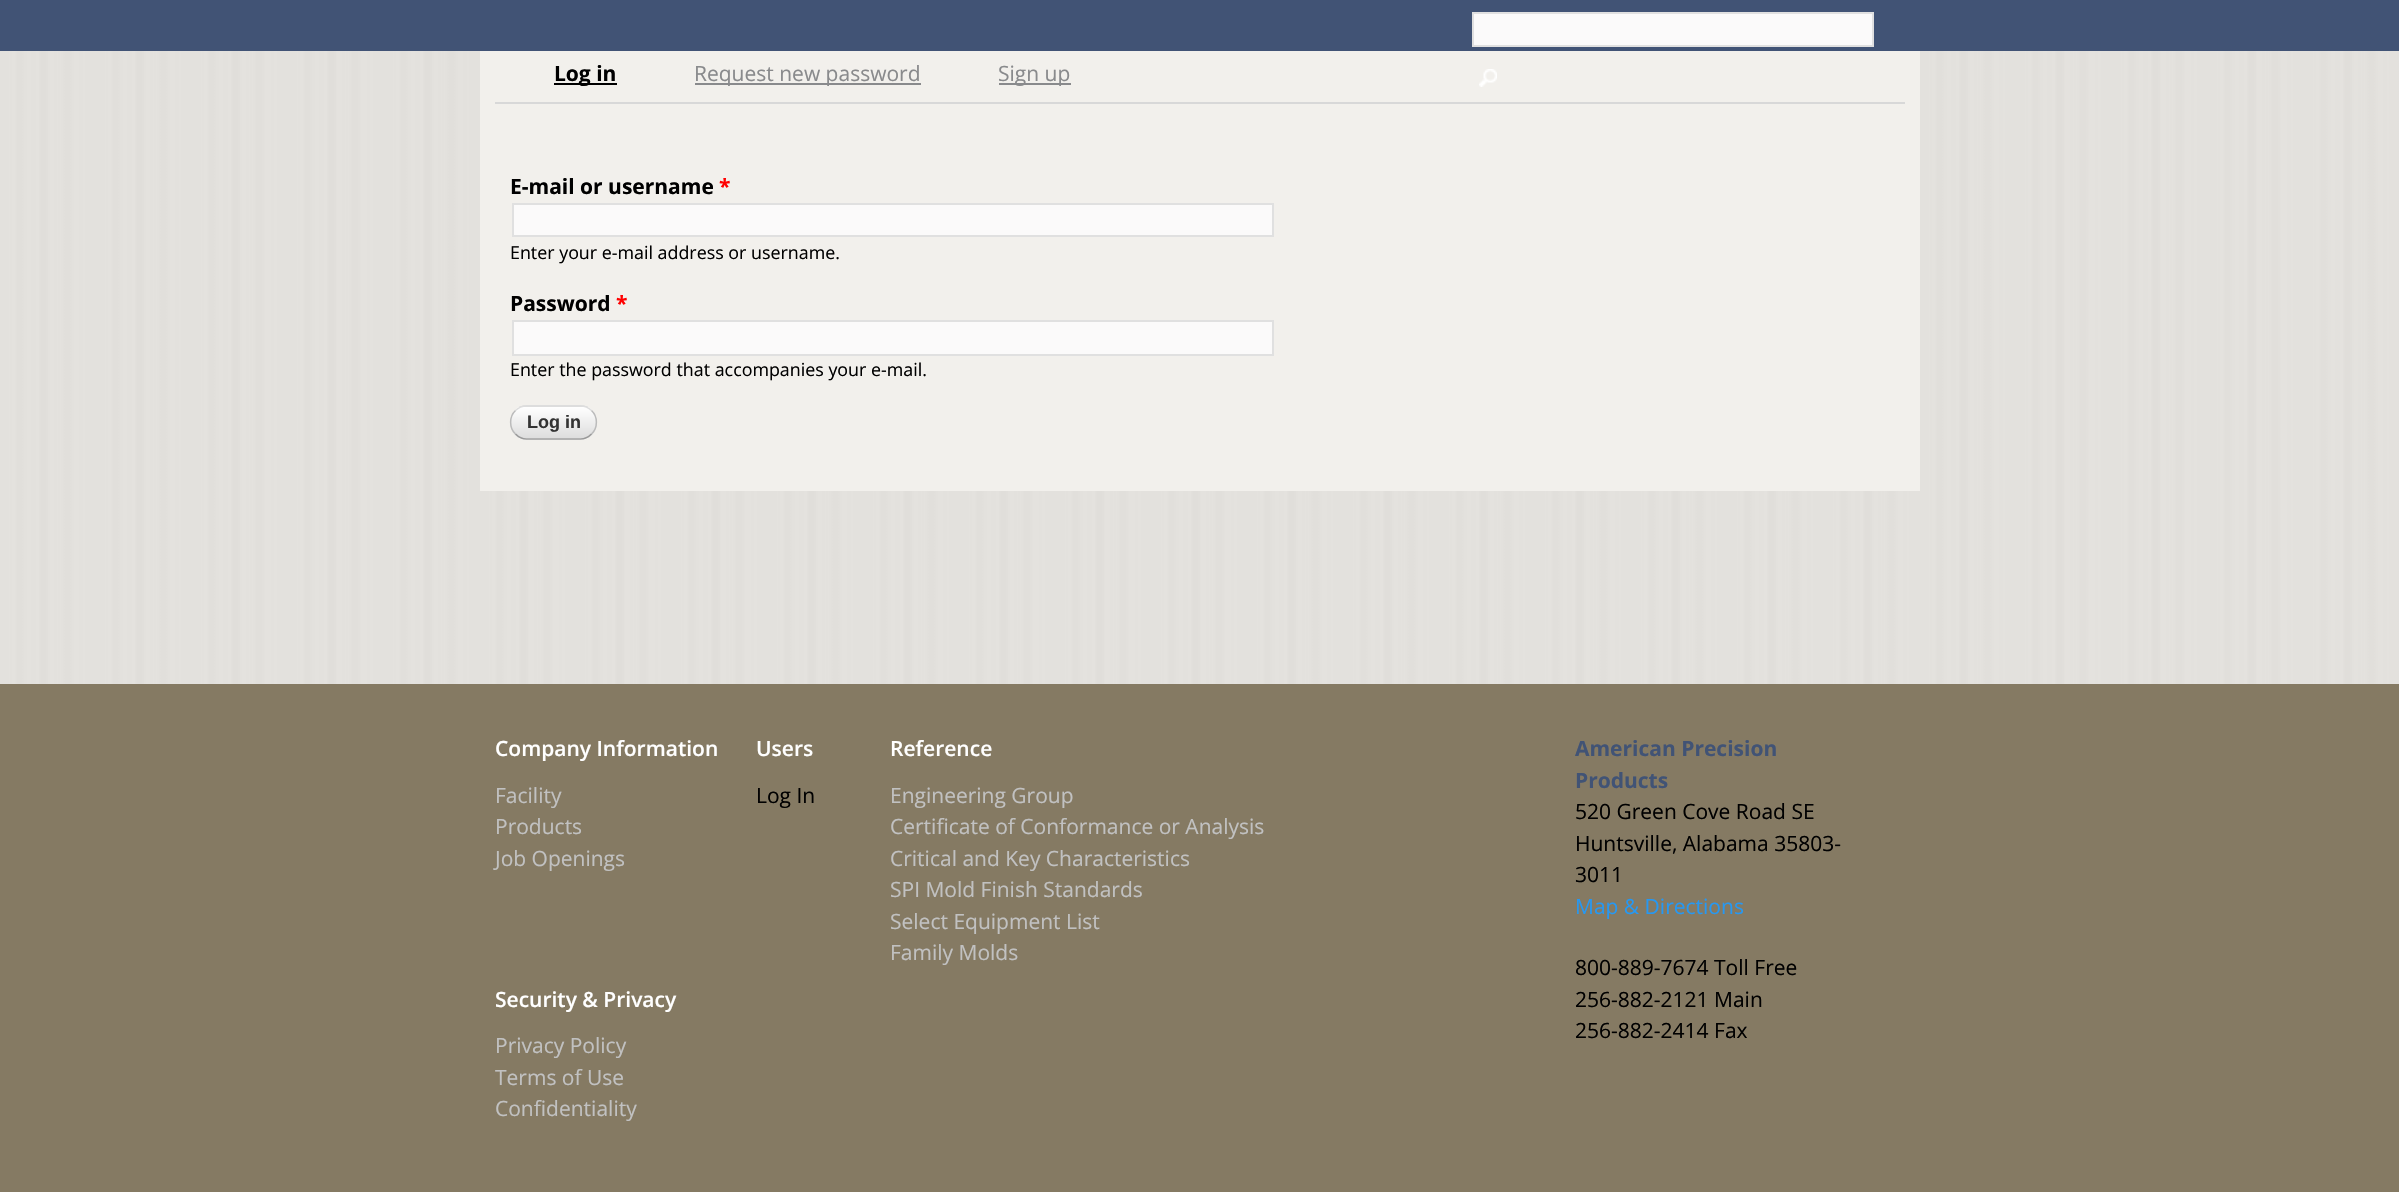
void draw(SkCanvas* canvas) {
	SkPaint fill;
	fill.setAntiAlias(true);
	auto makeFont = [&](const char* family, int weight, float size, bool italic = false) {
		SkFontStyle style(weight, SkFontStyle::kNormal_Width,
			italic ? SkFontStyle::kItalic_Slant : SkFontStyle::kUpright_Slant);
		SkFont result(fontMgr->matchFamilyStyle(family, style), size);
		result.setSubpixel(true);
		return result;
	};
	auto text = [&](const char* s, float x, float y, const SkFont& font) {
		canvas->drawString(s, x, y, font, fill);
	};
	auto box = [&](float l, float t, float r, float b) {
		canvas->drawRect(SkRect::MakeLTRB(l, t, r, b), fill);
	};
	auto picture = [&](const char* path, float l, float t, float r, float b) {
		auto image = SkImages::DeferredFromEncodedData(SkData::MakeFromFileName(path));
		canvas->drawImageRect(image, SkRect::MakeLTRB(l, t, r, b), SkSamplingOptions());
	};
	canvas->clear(0xFFE8E6E2);
	picture("image0.png", 0, 51, 2399, 684);
	fill.setColor(0xFF415375);
	box(0, 0, 2399, 51);
	fill.setColor(0xFFFBFAFA);
	canvas->drawRect(SkRect::MakeLTRB(1473, 13, 1873, 46), fill);
	fill.setStyle(SkPaint::kStroke_Style);
	fill.setStrokeWidth(2);
	fill.setColor(0xFFE0E0E0);
	canvas->drawRect(SkRect::MakeLTRB(1473, 13, 1873, 46), fill);
	fill.setStyle(SkPaint::kFill_Style);
	fill.setColor(0xFFF2F0EC);
	box(480, 51, 1920, 491);
	picture("image1.png", 1479, 69, 1497, 87);
	fill.setColor(0xFFD8D8D8);
	box(495, 102, 1905, 104);
	fill.setColor(0xFF000000);
	box(554, 83, 617, 85);
	fill.setColor(0xFF898A8C);
	box(695, 83, 921, 85);
	box(999, 83, 1071, 85);
	fill.setColor(0xFFFBFAFA);
	canvas->drawRect(SkRect::MakeLTRB(513, 204, 1273, 236), fill);
	fill.setStyle(SkPaint::kStroke_Style);
	fill.setColor(0xFFE0E0E0);
	canvas->drawRect(SkRect::MakeLTRB(513, 204, 1273, 236), fill);
	fill.setStyle(SkPaint::kFill_Style);
	fill.setColor(0xFFFBFAFA);
	canvas->drawRect(SkRect::MakeLTRB(513, 321, 1273, 355), fill);
	fill.setStyle(SkPaint::kStroke_Style);
	fill.setColor(0xFFE0E0E0);
	canvas->drawRect(SkRect::MakeLTRB(513, 321, 1273, 355), fill);
	canvas->save();
	canvas->clipPath(SkPathBuilder().moveTo(527, 405).lineTo(580, 405).cubicTo(589.5f, 405, 597, 412.5f, 597, 422).lineTo(597, 423).cubicTo(597, 432.5f, 589.5f, 440, 580, 440).lineTo(527, 440).cubicTo(517.5f, 440, 510, 432.5f, 510, 423).lineTo(510, 422).cubicTo(510, 412.5f, 517.5f, 405, 527, 405).close().detach(), true);
	fill.setStyle(SkPaint::kFill_Style);
	{
		const SkColor colors[] = {0xFFFFFFFF, 0xFFDDDDDD};
		const float stops[] = {0, 1};
		const SkPoint ends[] = {{512, 375}, {512, 407}};
		fill.setShader(SkGradientShader::MakeLinear(ends, colors, stops, 2, SkTileMode::kClamp));
		fill.setAlpha(255);
	}
	box(519, 405, 588, 407);
	{
		const SkColor colors[] = {0xFFFFFFFF, 0xFFDDDDDD};
		const float stops[] = {0, 1};
		const SkPoint ends[] = {{512, 407}, {512, 438}};
		fill.setShader(SkGradientShader::MakeLinear(ends, colors, stops, 2, SkTileMode::kClamp));
		fill.setAlpha(255);
	}
	box(510, 407, 597, 438);
	{
		const SkColor colors[] = {0xFFFFFFFF, 0xFFDDDDDD};
		const float stops[] = {0, 1};
		const SkPoint ends[] = {{512, 438}, {512, 470}};
		fill.setShader(SkGradientShader::MakeLinear(ends, colors, stops, 2, SkTileMode::kClamp));
		fill.setAlpha(255);
	}
	box(519, 438, 588, 440);
	canvas->restore();
	fill.setStyle(SkPaint::kStroke_Style);
	fill.setStrokeWidth(1.5f);
	fill.setShader(nullptr);
	fill.setColor(0xFFDDDDDD);
	canvas->drawPath(SkPathBuilder().moveTo(515.5f, 410.5f).cubicTo(518.5f, 407.5f, 522.5f, 406, 526.5f, 406).lineTo(580.5f, 406).cubicTo(584.5f, 406, 588.5f, 407.5f, 591.5f, 410.5f).detach(), fill);
	fill.setColor(0xFFBBBBBB);
	canvas->drawPath(SkPathBuilder().moveTo(591.5f, 410.5f).cubicTo(598, 416.5f, 598, 428, 591.5f, 434).detach(), fill);
	fill.setColor(0xFF999999);
	canvas->drawPath(SkPathBuilder().moveTo(591.5f, 434).cubicTo(588.5f, 437, 584.5f, 439, 580.5f, 439).lineTo(526.5f, 439).cubicTo(522.5f, 439, 518.5f, 437, 515.5f, 434).detach(), fill);
	fill.setColor(0xFFBBBBBB);
	canvas->drawPath(SkPathBuilder().moveTo(515.5f, 434).cubicTo(509, 428, 509, 416.5f, 515.5f, 410.5f).detach(), fill);
	fill.setStyle(SkPaint::kFill_Style);
	fill.setColor(0xFF857A63);
	box(0, 684, 2399, 1192);
	auto font1 = makeFont("Open Sans", 700, 21);
	fill.setColor(0xFF000000);
	text("Log in", 554, 81, font1);
	auto font2 = makeFont("Open Sans", 400, 21);
	fill.setColor(0xFF898A8C);
	text("Request new password", 694, 81, font2);
	text("Sign up", 998, 81, font2);
	fill.setColor(0xFF000000);
	text("E-mail or username", 510, 194, font1);
	fill.setColor(0xFFFF0000);
	text("*", 719, 194, font1);
	auto font3 = makeFont("Open Sans", 400, 17.85f);
	fill.setColor(0xFF000000);
	text("Enter your e-mail address or username.", 510, 259, font3);
	text("Password", 510, 311, font1);
	fill.setColor(0xFFFF0000);
	text("*", 616, 311, font1);
	fill.setColor(0xFF000000);
	text("Enter the password that accompanies your e-mail.", 510, 376, font3);
	auto font4 = makeFont("Liberation Sans", 700, 18);
	fill.setColor(0xFF333333);
	text("Log in", 527, 428, font4);
	auto font5 = makeFont("Open Sans", 600, 21);
	fill.setColor(0xFFFFFFFF);
	text("Company Information", 495, 756, font5);
	fill.setColor(0xFFC1C1C1);
	text("Facility", 495, 803, font2);
	text("Products", 495, 834, font2);
	text("Job Openings", 495, 866, font2);
	fill.setColor(0xFFFFFFFF);
	text("Users", 756, 756, font5);
	fill.setColor(0xFF000000);
	text("Log In", 756, 803, font2);
	fill.setColor(0xFFFFFFFF);
	text("Reference", 890, 756, font5);
	fill.setColor(0xFFC1C1C1);
	text("Engineering Group", 890, 803, font2);
	text("Certificate of Conformance or Analysis", 890, 834, font2);
	text("Critical and Key Characteristics", 890, 866, font2);
	text("SPI Mold Finish Standards", 890, 897, font2);
	text("Select Equipment List", 890, 929, font2);
	text("Family Molds", 890, 960, font2);
	fill.setColor(0xFFFFFFFF);
	text("Security & Privacy", 495, 1007, font5);
	fill.setColor(0xFFC1C1C1);
	text("Privacy Policy", 495, 1053, font2);
	text("Terms of Use", 495, 1085, font2);
	text("Confidentiality", 495, 1116, font2);
	fill.setColor(0xFF415375);
	text("American Precision", 1575, 756, font1);
	text("Products", 1575, 788, font1);
	fill.setColor(0xFF000000);
	text("520 Green Cove Road SE", 1575, 819, font2);
	text("Huntsville, Alabama 35803-", 1575, 851, font2);
	text("3011", 1575, 882, font2);
	fill.setColor(0xFF2698F2);
	text("Map & Directions", 1575, 914, font2);
	fill.setColor(0xFF000000);
	text("800-889-7674 Toll Free", 1575, 975, font2);
	text("256-882-2121 Main", 1575, 1007, font2);
	text("256-882-2414 Fax", 1575, 1038, font2);
}
